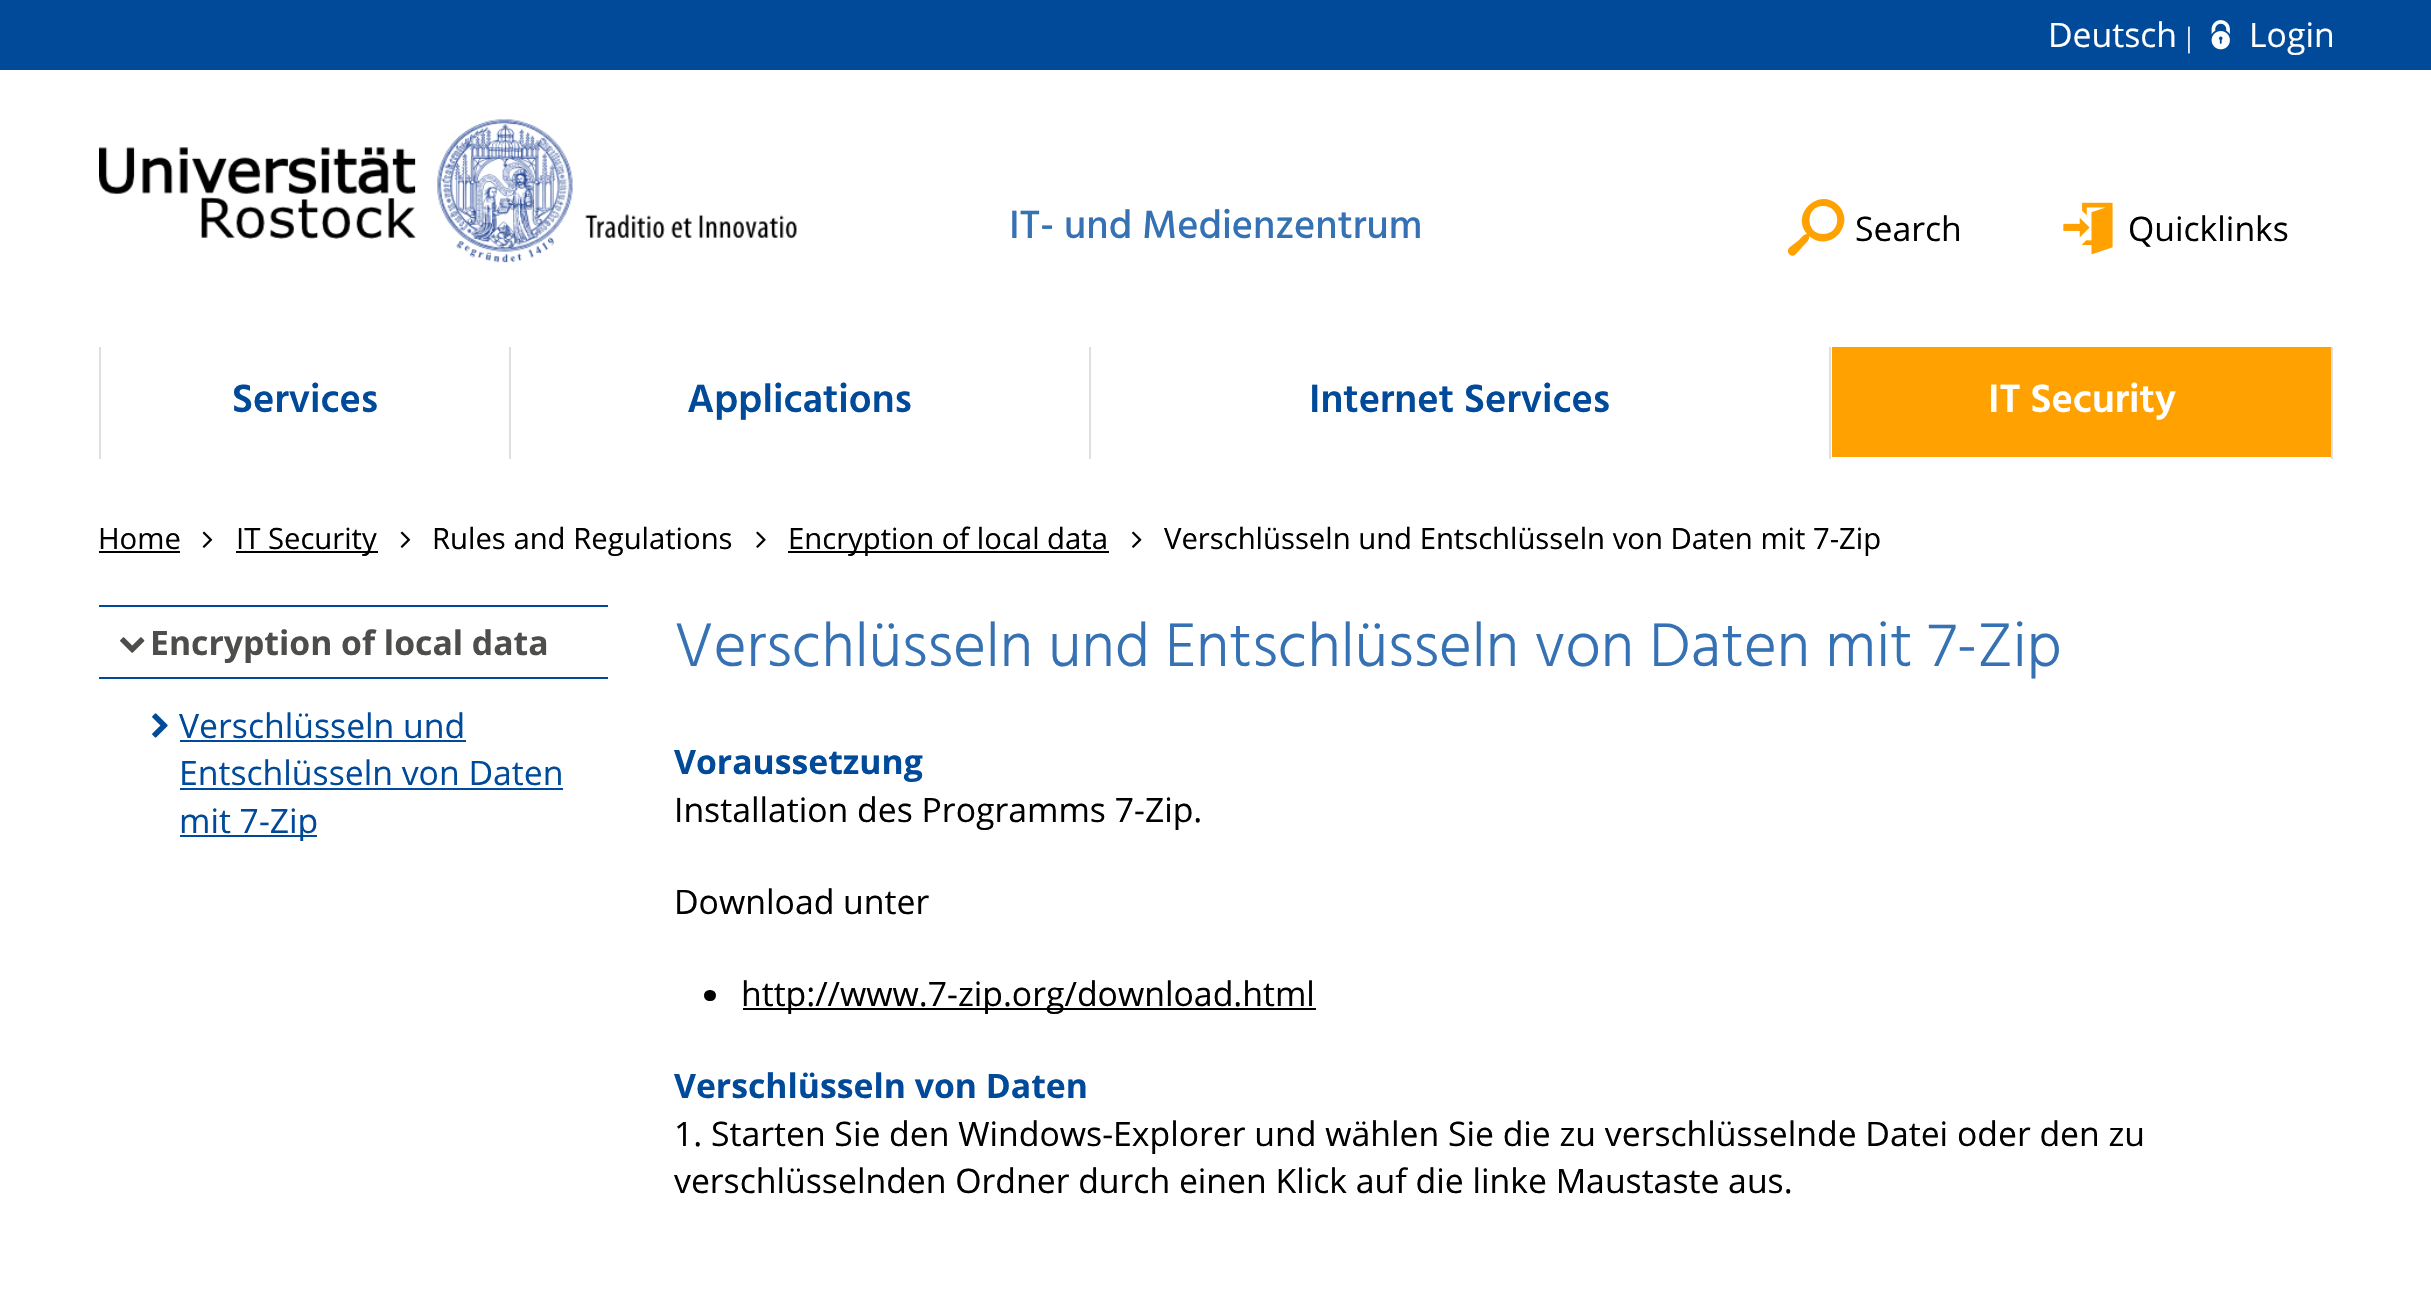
void draw(SkCanvas* canvas) {
	SkPaint fill;
	fill.setAntiAlias(true);
	auto makeFont = [&](const char* family, int weight, float size, bool italic = false) {
		SkFontStyle style(weight, SkFontStyle::kNormal_Width,
			italic ? SkFontStyle::kItalic_Slant : SkFontStyle::kUpright_Slant);
		SkFont result(fontMgr->matchFamilyStyle(family, style), size);
		result.setSubpixel(true);
		return result;
	};
	auto text = [&](const char* s, float x, float y, const SkFont& font) {
		canvas->drawString(s, x, y, font, fill);
	};
	auto box = [&](float l, float t, float r, float b) {
		canvas->drawRect(SkRect::MakeLTRB(l, t, r, b), fill);
	};
	auto roundBox = [&](float l, float t, float r, float b, float radius) {
		canvas->drawRoundRect(SkRect::MakeLTRB(l, t, r, b), radius, radius, fill);
	};
	auto picture = [&](const char* path, float l, float t, float r, float b) {
		auto image = SkImages::DeferredFromEncodedData(SkData::MakeFromFileName(path));
		canvas->drawImageRect(image, SkRect::MakeLTRB(l, t, r, b), SkSamplingOptions());
	};
	canvas->clear(0xFFFFFFFF);
	fill.setColor(0xFF004A99);
	box(0, 0, 2431, 70);
	picture("image0.png", 2211, 20, 2230, 50);
	picture("image1.png", 99, 119, 797, 263);
	fill.setColor(0xFFFFA100);
	canvas->drawPath(SkPathBuilder().moveTo(1790, 247).lineTo(1799, 240).cubicTo(1801, 238, 1804, 234, 1807, 234).cubicTo(1790, 214, 1819, 187, 1838, 205).cubicTo(1857, 224, 1830, 254, 1809, 236).cubicTo(1810, 240, 1806, 243, 1804, 245).lineTo(1795, 255).cubicTo(1790, 258, 1785, 251, 1790, 247).close().moveTo(1823, 234).cubicTo(1842, 234, 1842, 206, 1823, 206).cubicTo(1805, 206, 1805, 234, 1823, 234).close().detach(), fill);
	picture("image2.png", 2063, 202, 2113, 255);
	fill.setColor(0xFFDFDFDF);
	box(99, 347, 101, 459);
	box(509, 347, 511, 459);
	box(1089, 347, 1091, 459);
	box(2331, 347, 2333, 459);
	box(1829, 347, 1831, 459);
	fill.setColor(0xFFFFA100);
	box(1832, 347, 2331, 457);
	fill.setColor(0xFF000000);
	box(99, 551, 180, 553);
	picture("image3.png", 202, 531, 213, 548);
	box(236, 551, 378, 553);
	picture("image3.png", 400, 531, 411, 548);
	picture("image4.png", 756, 531, 766, 548);
	box(788, 551, 1109, 553);
	picture("image5.png", 1132, 531, 1142, 548);
	fill.setColor(0xFF004A99);
	box(99, 605, 608, 607);
	box(99, 677, 608, 679);
	picture("image6.png", 120, 637, 145, 653);
	picture("image7.png", 152, 713, 168, 738);
	box(180, 740, 466, 742);
	box(180, 788, 563, 790);
	box(180, 835, 317, 837);
	fill.setColor(0xFF000000);
	roundBox(704, 990, 716, 1001, 5.5f);
	box(743, 1008, 1316, 1010);
	auto font1 = makeFont("Open Sans", 400, 33.75f);
	fill.setColor(0xFFFFFFFF);
	text("Deutsch", 2048, 47, font1);
	auto font2 = makeFont("Liberation Serif", 400, 29.25f);
	text("|", 2186, 47, font2);
	text("Login", 2249, 47, font1);
	auto font3 = makeFont("Hind", 500, 40.5f);
	fill.setColor(0xFF3672B3);
	text("IT- und Medienzentrum", 1009, 238, font3);
	fill.setColor(0xFF000000);
	text("Search", 1855, 241, font1);
	text("Quicklinks", 2128, 241, font1);
	auto font4 = makeFont("Hind", 600, 40.5f);
	fill.setColor(0xFF004A99);
	text("Services", 232, 412, font4);
	text("Applications", 687, 412, font4);
	text("Internet Services", 1309, 412, font4);
	fill.setColor(0xFFFFFFFF);
	text("IT Security", 1988, 412, font4);
	auto font5 = makeFont("Open Sans", 400, 29.25f);
	fill.setColor(0xFF000000);
	text("Home", 98, 549, font5);
	text("IT Security", 236, 549, font5);
	text("Rules and Regulations", 432, 549, font5);
	text("Encryption of local data", 788, 549, font5);
	text("Verschlüsseln und Entschlüsseln von Daten mit 7-Zip", 1164, 549, font5);
	auto font6 = makeFont("Open Sans", 700, 33.75f);
	fill.setColor(0xFF4D4D4B);
	text("Encryption of local data", 150, 655, font6);
	fill.setColor(0xFF004A99);
	text("Verschlüsseln und", 179, 738, font1);
	text("Entschlüsseln von Daten", 179, 785, font1);
	text("mit 7-Zip", 179, 833, font1);
	auto font7 = makeFont("Hind", 300, 63);
	fill.setColor(0xFF3672B3);
	text("Verschlüsseln und Entschlüsseln von Daten mit 7-Zip", 674, 666, font7);
	fill.setColor(0xFF004A99);
	text("Voraussetzung", 674, 774, font6);
	fill.setColor(0xFF000000);
	text("Installation des Programms 7-Zip.", 674, 822, font1);
	text("Download unter", 674, 914, font1);
	text("http://www.7-zip.org/download.html", 741, 1006, font1);
	fill.setColor(0xFF004A99);
	text("Verschlüsseln von Daten", 674, 1098, font6);
	fill.setColor(0xFF000000);
	text("1. Starten Sie den Windows-Explorer und wählen Sie die zu verschlüsselnde Datei oder den zu", 674, 1146, font1);
	text("verschlüsselnden Ordner durch einen Klick auf die linke Maustaste aus.", 674, 1193, font1);
}
